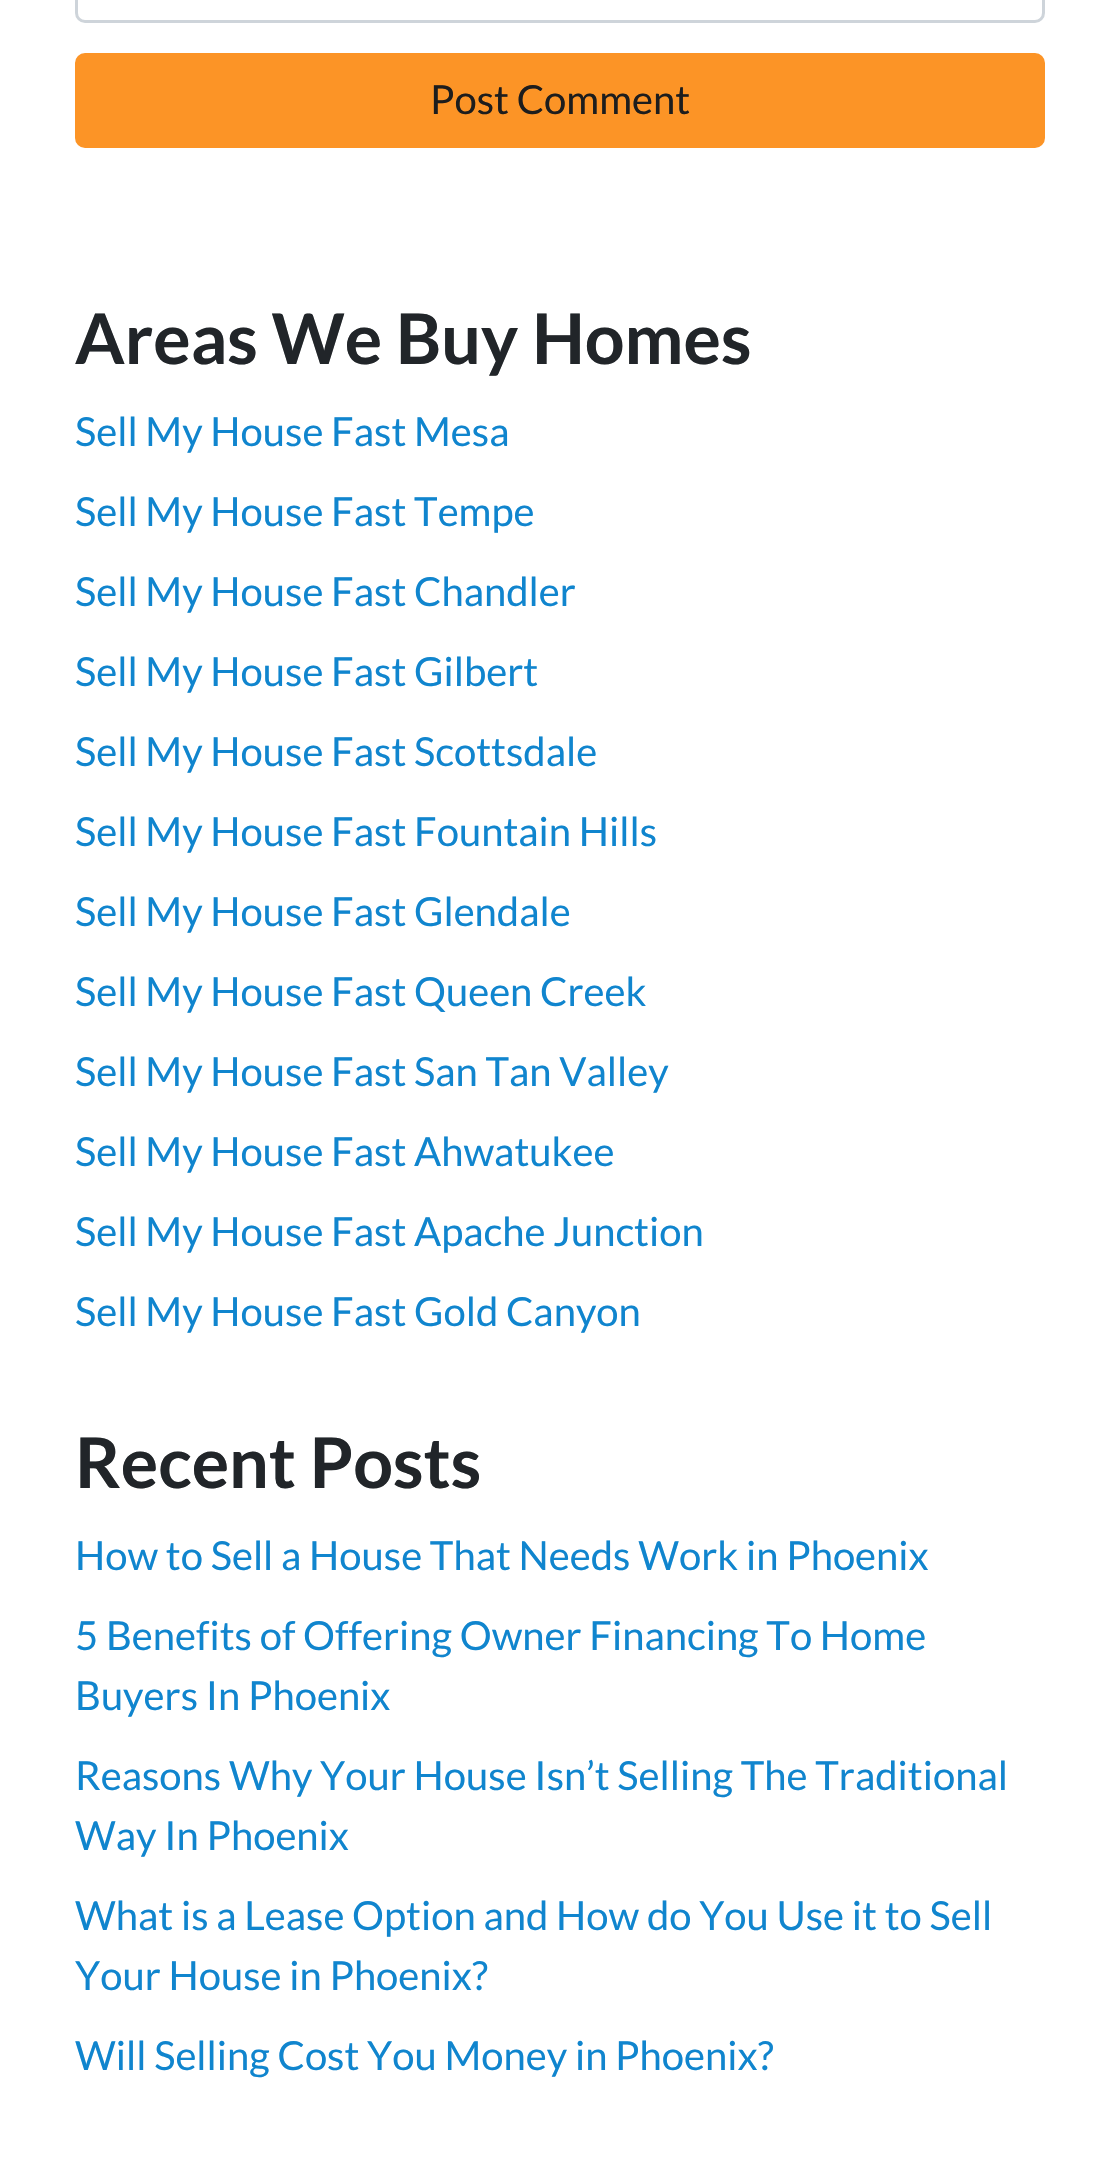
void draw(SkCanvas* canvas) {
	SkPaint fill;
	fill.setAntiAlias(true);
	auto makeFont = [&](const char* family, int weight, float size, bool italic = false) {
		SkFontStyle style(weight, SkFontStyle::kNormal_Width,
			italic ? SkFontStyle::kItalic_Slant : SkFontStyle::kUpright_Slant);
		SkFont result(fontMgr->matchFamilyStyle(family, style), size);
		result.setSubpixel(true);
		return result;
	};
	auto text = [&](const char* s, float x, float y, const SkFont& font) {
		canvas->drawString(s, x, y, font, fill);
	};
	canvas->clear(0xFFFFFFFF);
	fill.setStyle(SkPaint::kStroke_Style);
	fill.setStrokeWidth(3);
	fill.setColor(0xFFCED4DA);
	canvas->drawRoundRect(SkRect::MakeLTRB(76.5f, -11.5f, 1043.5f, 21.5f), 8.5f, 8.5f, fill);
	fill.setStyle(SkPaint::kFill_Style);
	fill.setColor(0xFFFC9426);
	canvas->drawRoundRect(SkRect::MakeLTRB(76.5f, 54.5f, 1043.5f, 146.5f), 8.5f, 8.5f, fill);
	fill.setStyle(SkPaint::kStroke_Style);
	canvas->drawRoundRect(SkRect::MakeLTRB(76.5f, 54.5f, 1043.5f, 146.5f), 8.5f, 8.5f, fill);
	auto font1 = makeFont("Lato", 400, 40);
	fill.setStyle(SkPaint::kFill_Style);
	fill.setColor(0xFF1D1D1D);
	text("Post Comment", 430, 114, font1);
	auto font2 = makeFont("Lato", 700, 70);
	fill.setColor(0xFF212529);
	text("Areas We Buy Homes", 75, 364, font2);
	fill.setColor(0xFF1085CE);
	text("Sell My House Fast Mesa", 75, 446, font1);
	text("Sell My House Fast Tempe", 75, 526, font1);
	text("Sell My House Fast Chandler", 75, 606, font1);
	text("Sell My House Fast Gilbert", 75, 686, font1);
	text("Sell My House Fast Scottsdale", 75, 766, font1);
	text("Sell My House Fast Fountain Hills", 75, 846, font1);
	text("Sell My House Fast Glendale", 75, 926, font1);
	text("Sell My House Fast Queen Creek", 75, 1006, font1);
	text("Sell My House Fast San Tan Valley", 75, 1086, font1);
	text("Sell My House Fast Ahwatukee", 75, 1166, font1);
	text("Sell My House Fast Apache Junction", 75, 1246, font1);
	text("Sell My House Fast Gold Canyon", 75, 1326, font1);
	fill.setColor(0xFF212529);
	text("Recent Posts", 75, 1488, font2);
	fill.setColor(0xFF1085CE);
	text("How to Sell a House That Needs Work in Phoenix", 75, 1570, font1);
	text("5 Benefits of Offering Owner Financing To Home", 75, 1650, font1);
	text("Buyers In Phoenix", 75, 1710, font1);
	text("Reasons Why Your House Isn’t Selling The Traditional", 75, 1790, font1);
	text("Way In Phoenix", 75, 1850, font1);
	text("What is a Lease Option and How do You Use it to Sell", 75, 1930, font1);
	text("Your House in Phoenix?", 75, 1990, font1);
	text("Will Selling Cost You Money in Phoenix?", 75, 2070, font1);
}
